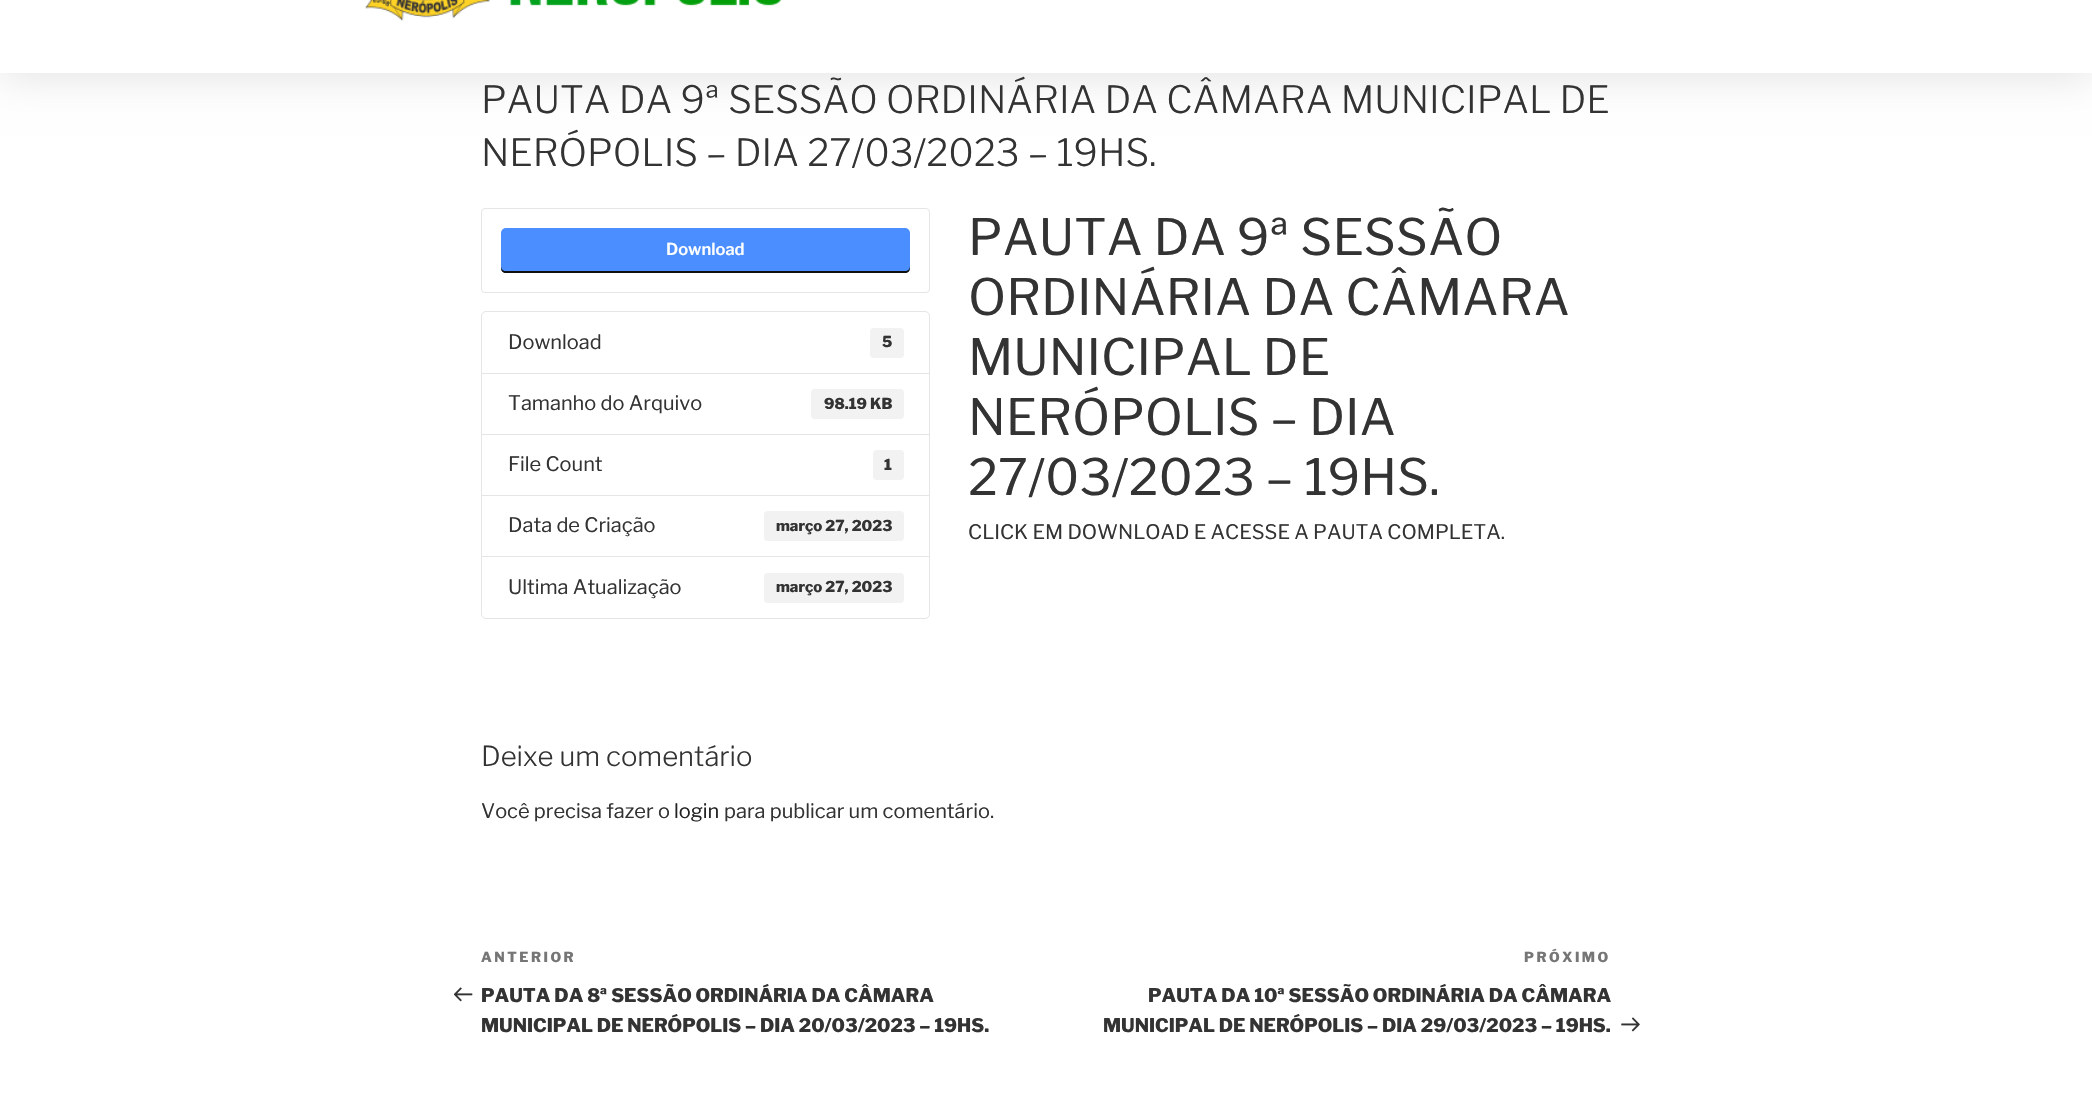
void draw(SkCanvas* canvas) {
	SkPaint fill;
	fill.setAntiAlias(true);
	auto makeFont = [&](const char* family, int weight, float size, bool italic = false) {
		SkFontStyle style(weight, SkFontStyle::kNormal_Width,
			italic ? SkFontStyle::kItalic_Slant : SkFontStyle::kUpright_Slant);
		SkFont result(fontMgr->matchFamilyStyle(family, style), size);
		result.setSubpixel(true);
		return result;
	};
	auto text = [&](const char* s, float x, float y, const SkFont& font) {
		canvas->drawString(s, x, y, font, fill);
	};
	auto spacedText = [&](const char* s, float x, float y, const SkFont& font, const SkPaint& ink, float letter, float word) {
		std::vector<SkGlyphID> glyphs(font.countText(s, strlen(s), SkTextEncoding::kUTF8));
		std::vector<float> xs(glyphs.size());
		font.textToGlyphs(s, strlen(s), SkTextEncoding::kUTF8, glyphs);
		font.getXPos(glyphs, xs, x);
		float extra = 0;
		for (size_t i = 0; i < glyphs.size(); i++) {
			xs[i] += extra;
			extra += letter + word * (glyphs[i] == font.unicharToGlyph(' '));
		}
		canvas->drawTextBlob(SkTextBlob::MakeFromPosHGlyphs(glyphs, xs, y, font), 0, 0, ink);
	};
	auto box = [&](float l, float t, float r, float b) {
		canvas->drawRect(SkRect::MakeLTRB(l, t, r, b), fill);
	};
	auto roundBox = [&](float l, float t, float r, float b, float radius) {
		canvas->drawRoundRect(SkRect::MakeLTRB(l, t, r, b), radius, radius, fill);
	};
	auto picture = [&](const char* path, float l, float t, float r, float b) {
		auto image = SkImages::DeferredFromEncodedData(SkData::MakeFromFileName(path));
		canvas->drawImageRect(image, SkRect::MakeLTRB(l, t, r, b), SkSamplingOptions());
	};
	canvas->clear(0xFFFFFFFF);
	canvas->save();
	canvas->clipPath(SkPathBuilder(SkPathFillType::kEvenOdd).moveTo(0, 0).lineTo(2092, 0).lineTo(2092, 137).lineTo(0, 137).close().moveTo(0, -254).lineTo(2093, -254).lineTo(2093, 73).lineTo(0, 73).close().detach(), true);
	fill.setColor(0x1A000000);
	fill.setMaskFilter(SkMaskFilter::MakeBlur(kNormal_SkBlurStyle, 19));
	canvas->drawRect(SkRect::MakeLTRB(0, -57, 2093, 79), fill);
	fill.setMaskFilter(nullptr);
	canvas->restore();
	fill.setColor(0xFFFFFFFF);
	box(334, 72, 1759, 73);
	picture("image0.png", 365, 0, 782, 21);
	fill.setStyle(SkPaint::kStroke_Style);
	fill.setStrokeWidth(1);
	fill.setColor(0xFFE5E5E5);
	canvas->drawRoundRect(SkRect::MakeLTRB(481.5f, 208.5f, 929.5f, 292.5f), 3.5f, 3.5f, fill);
	fill.setStyle(SkPaint::kFill_Style);
	fill.setColor(0xFF4A8EFF);
	roundBox(501, 228, 910, 273, 5);
	fill.setColor(0xFF0F0F0F);
	canvas->drawPath(SkPathBuilder().moveTo(501, 266).lineTo(501, 268).cubicTo(501, 271, 503, 273, 506, 273).lineTo(905, 273).cubicTo(908, 273, 910, 271, 910, 268).lineTo(910, 266).cubicTo(910, 269, 908, 271, 905, 271).lineTo(506, 271).cubicTo(503, 271, 501, 269, 501, 266).close().detach(), fill);
	fill.setStyle(SkPaint::kStroke_Style);
	fill.setColor(0xFFE5E5E5);
	canvas->drawPath(SkPathBuilder().moveTo(486, 311.5f).lineTo(925, 311.5f).cubicTo(927.5f, 311.5f, 929.5f, 313.5f, 929.5f, 316).lineTo(929.5f, 373.5f).lineTo(481.5f, 373.5f).lineTo(481.5f, 316).cubicTo(481.5f, 313.5f, 483.5f, 311.5f, 486, 311.5f).close().detach(), fill);
	fill.setStyle(SkPaint::kFill_Style);
	fill.setColor(0xFFF2F2F2);
	roundBox(870, 328, 904, 358, 4);
	fill.setStyle(SkPaint::kStroke_Style);
	fill.setColor(0xFFE5E5E5);
	canvas->drawRect(SkRect::MakeLTRB(481.5f, 373.5f, 929.5f, 434.5f), fill);
	fill.setStyle(SkPaint::kFill_Style);
	fill.setColor(0xFFF2F2F2);
	roundBox(811, 389, 904, 419, 4);
	fill.setStyle(SkPaint::kStroke_Style);
	fill.setColor(0xFFE5E5E5);
	canvas->drawRect(SkRect::MakeLTRB(481.5f, 434.5f, 929.5f, 495.5f), fill);
	fill.setStyle(SkPaint::kFill_Style);
	fill.setColor(0xFFF2F2F2);
	roundBox(873, 450, 904, 480, 4);
	fill.setStyle(SkPaint::kStroke_Style);
	fill.setColor(0xFFE5E5E5);
	canvas->drawRect(SkRect::MakeLTRB(481.5f, 495.5f, 929.5f, 557.5f), fill);
	fill.setStyle(SkPaint::kFill_Style);
	fill.setColor(0xFFF2F2F2);
	roundBox(764, 511, 904, 541, 4);
	fill.setColor(0xFFFFFFFF);
	canvas->drawPath(SkPathBuilder().moveTo(481.5f, 556.5f).lineTo(929.5f, 556.5f).lineTo(929.5f, 614).cubicTo(929.5f, 616.5f, 927.5f, 618.5f, 925, 618.5f).lineTo(486, 618.5f).cubicTo(483.5f, 618.5f, 481.5f, 616.5f, 481.5f, 614).close().detach(), fill);
	fill.setStyle(SkPaint::kStroke_Style);
	fill.setColor(0xFFE5E5E5);
	canvas->drawPath(SkPathBuilder().moveTo(481.5f, 556.5f).lineTo(929.5f, 556.5f).lineTo(929.5f, 614).cubicTo(929.5f, 616.5f, 927.5f, 618.5f, 925, 618.5f).lineTo(486, 618.5f).cubicTo(483.5f, 618.5f, 481.5f, 616.5f, 481.5f, 614).close().detach(), fill);
	fill.setStyle(SkPaint::kFill_Style);
	fill.setColor(0xFFF2F2F2);
	roundBox(764, 573, 904, 603, 4);
	picture("image1.png", 454, 987, 473, 1002);
	picture("image2.png", 1621, 1017, 1640, 1032);
	auto font1 = makeFont("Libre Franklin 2", 100, 37.5f);
	fill.setColor(0xFF333333);
	text("PAUTA DA 9ª SESSÃO ORDINÁRIA DA CÂMARA MUNICIPAL DE", 481, 113, font1);
	text("NERÓPOLIS – DIA 27/03/2023 – 19HS.", 481, 166, font1);
	auto font2 = makeFont("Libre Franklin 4", 100, 16.5f);
	fill.setColor(0xFFFFFFFF);
	text("Download", 666, 255, font2);
	auto font3 = makeFont("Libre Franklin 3", 100, 20);
	fill.setColor(0xFF333333);
	text("Download", 508, 349, font3);
	auto font4 = makeFont("Libre Franklin", 100, 15);
	text("5", 882, 347, font4);
	text("Tamanho do Arquivo", 508, 410, font3);
	text("98.19 KB", 824, 409, font4);
	text("File Count", 508, 471, font3);
	text("1", 884, 470, font4);
	text("Data de Criação", 508, 532, font3);
	text("março 27, 2023", 776, 531, font4);
	text("Ultima Atualização", 508, 594, font3);
	text("março 27, 2023", 776, 592, font4);
	auto font5 = makeFont("Libre Franklin 3", 100, 50);
	text("PAUTA DA 9ª SESSÃO", 968, 255, font5);
	text("ORDINÁRIA DA CÂMARA", 968, 315, font5);
	text("MUNICIPAL DE", 968, 375, font5);
	text("NERÓPOLIS – DIA", 968, 435, font5);
	text("27/03/2023 – 19HS.", 968, 495, font5);
	text("CLICK EM DOWNLOAD E ACESSE A PAUTA COMPLETA.", 968, 539, font3);
	auto font6 = makeFont("Libre Franklin 2", 100, 27.5f);
	text("Deixe um comentário", 481, 766, font6);
	text("Você precisa fazer o", 481, 818, font3);
	fill.setColor(0xFF222222);
	text("login", 674, 818, font3);
	fill.setColor(0xFF333333);
	text("para publicar um comentário.", 724, 818, font3);
	auto font7 = makeFont("Libre Franklin", 100, 13.75f);
	fill.setColor(0xFF767676);
	spacedText("ANTERIOR", 481, 962, font7, fill, 2.5f, 0);
	auto font8 = makeFont("Libre Franklin", 100, 18.75f);
	fill.setColor(0xFF333333);
	text("PAUTA DA 8ª SESSÃO ORDINÁRIA DA CÂMARA", 481, 1002, font8);
	text("MUNICIPAL DE NERÓPOLIS – DIA 20/03/2023 – 19HS.", 481, 1032, font8);
	fill.setColor(0xFF767676);
	spacedText("PRÓXIMO", 1524, 962, font7, fill, 2.5f, 0);
	fill.setColor(0xFF333333);
	text("PAUTA DA 10ª SESSÃO ORDINÁRIA DA CÂMARA", 1148, 1002, font8);
	text("MUNICIPAL DE NERÓPOLIS – DIA 29/03/2023 – 19HS.", 1103, 1032, font8);
}
